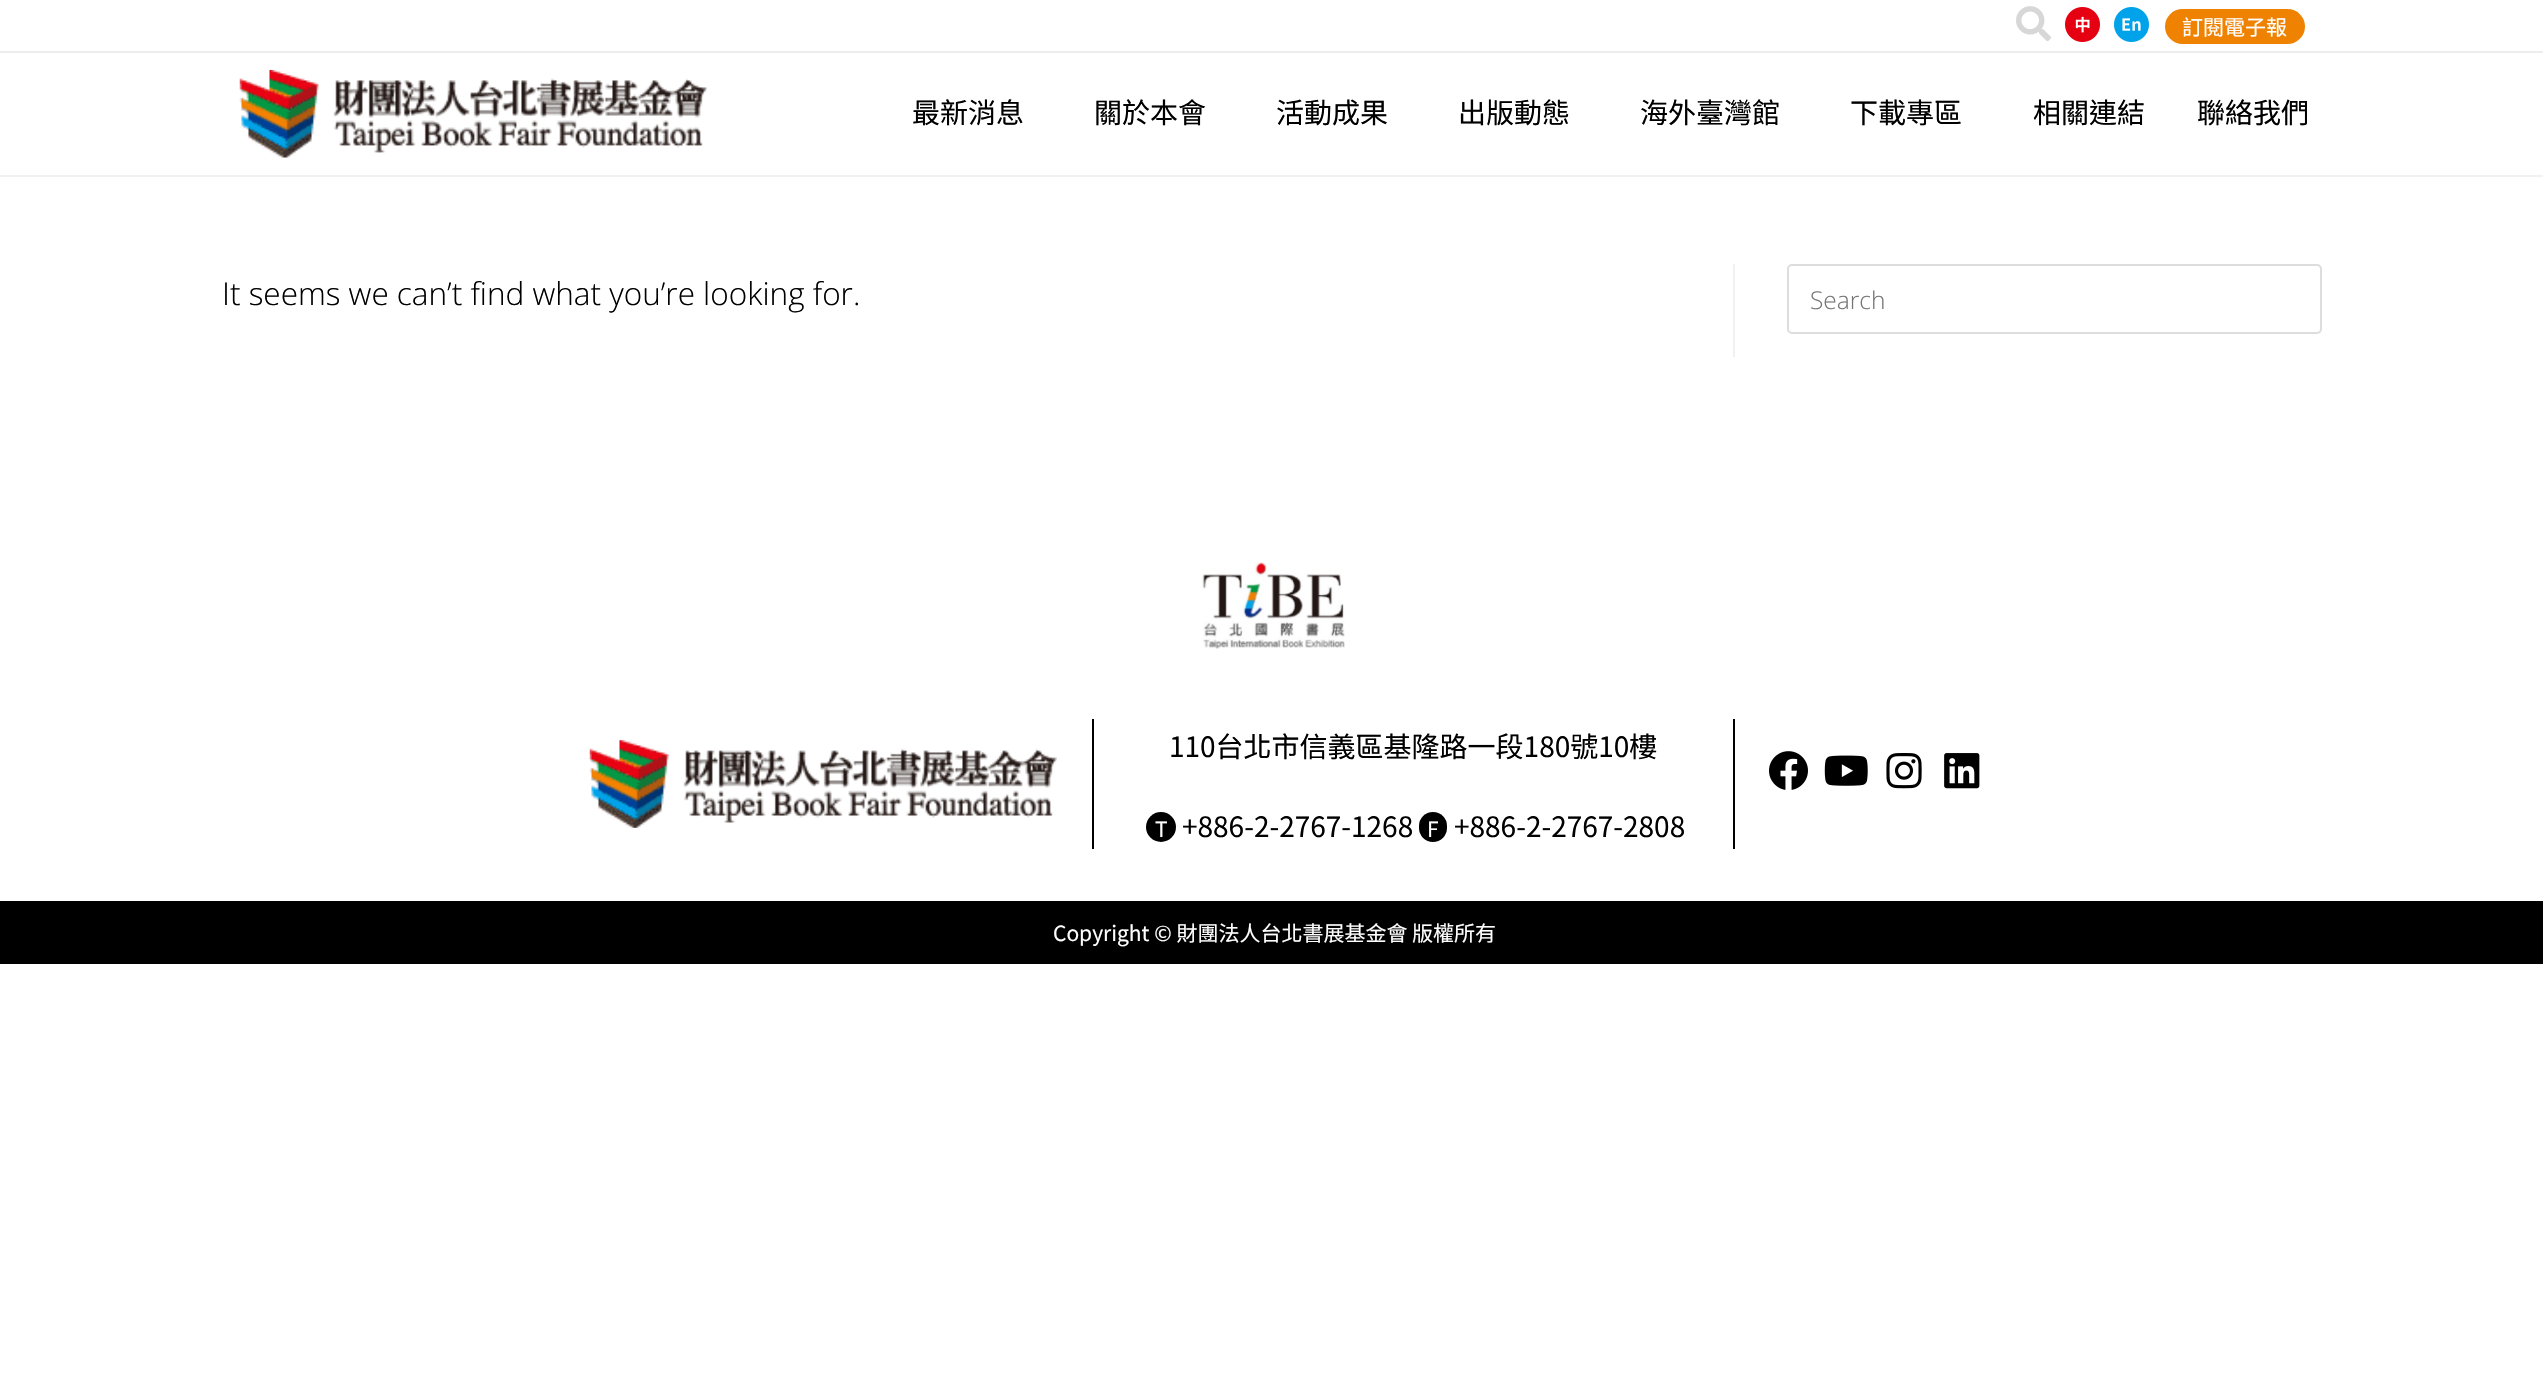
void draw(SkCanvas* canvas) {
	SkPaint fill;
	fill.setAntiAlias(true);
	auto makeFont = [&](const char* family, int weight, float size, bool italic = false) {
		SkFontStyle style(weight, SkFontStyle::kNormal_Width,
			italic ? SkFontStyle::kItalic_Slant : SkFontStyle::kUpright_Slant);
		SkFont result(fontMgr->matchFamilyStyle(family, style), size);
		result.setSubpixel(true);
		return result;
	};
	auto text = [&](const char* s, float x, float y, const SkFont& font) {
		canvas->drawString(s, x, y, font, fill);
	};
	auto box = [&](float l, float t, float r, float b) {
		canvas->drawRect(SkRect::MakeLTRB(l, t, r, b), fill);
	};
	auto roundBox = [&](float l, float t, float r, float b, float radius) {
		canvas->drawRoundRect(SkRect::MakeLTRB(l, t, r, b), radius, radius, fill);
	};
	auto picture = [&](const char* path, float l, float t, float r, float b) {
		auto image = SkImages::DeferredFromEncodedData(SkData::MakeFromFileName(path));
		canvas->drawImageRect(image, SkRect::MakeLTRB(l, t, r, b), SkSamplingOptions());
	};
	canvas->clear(0xFFFFFFFF);
	fill.setColor(0xFFF1F1F1);
	box(0, 175, 2543, 177);
	fill.setColor(0xFFEDEDED);
	box(0, 51, 2543, 53);
	picture("image0.png", 2016, 6, 2051, 41);
	picture("image1.png", 2065, 7, 2100, 42);
	picture("image2.png", 2114, 7, 2149, 42);
	fill.setColor(0xFFEF8200);
	roundBox(2165, 9, 2305, 44, 17.5f);
	picture("image3.png", 239, 70, 707, 158);
	fill.setColor(0xFFF1F1F1);
	box(1733, 264, 1735, 357);
	fill.setStyle(SkPaint::kStroke_Style);
	fill.setStrokeWidth(2);
	fill.setColor(0xFFDDDDDD);
	canvas->drawRoundRect(SkRect::MakeLTRB(1788, 265, 2321, 333), 4, 4, fill);
	picture("image4.png", 1202, 562, 1345, 649);
	picture("image5.png", 589, 740, 1057, 828);
	fill.setStyle(SkPaint::kFill_Style);
	fill.setColor(0xFF000000);
	box(1733, 719, 1735, 849);
	box(1092, 719, 1094, 849);
	canvas->drawCircle(1161, 827, 15, fill);
	roundBox(1419, 812, 1447, 842, 14);
	picture("image6.png", 1769, 751, 1808, 790);
	picture("image7.png", 1824, 755, 1868, 786);
	picture("image8.png", 1886, 753, 1922, 789);
	picture("image9.png", 1944, 753, 1980, 789);
	box(0, 901, 2543, 964);
	auto font1 = makeFont("Noto Sans TC", 400, 21);
	fill.setColor(0xFFFFFFFF);
	text("訂閱電子報", 2182, 35, font1);
	auto font2 = makeFont("Noto Sans TC", 400, 28);
	fill.setColor(0xFF000000);
	text("最新消息", 912, 123, font2);
	text("關於本會", 1094, 123, font2);
	text("活動成果", 1276, 123, font2);
	text("出版動態", 1458, 123, font2);
	text("海外臺灣館", 1640, 123, font2);
	text("下載專區", 1850, 123, font2);
	text("相關連結", 2033, 123, font2);
	text("聯絡我們", 2197, 123, font2);
	auto font3 = makeFont("Open Sans", 300, 31.5f);
	text("It seems we can’t find what you’re looking for.", 222, 305, font3);
	auto font4 = makeFont("Open Sans", 300, 24.5f);
	fill.setColor(0xFF757575);
	text("Search", 1810, 309, font4);
	fill.setColor(0xFF000000);
	text("110台北市信義區基隆路一段180號10樓", 1169, 757, font2);
	fill.setColor(0xFFFFFFFF);
	text("T", 1155, 837, font1);
	fill.setColor(0xFF000000);
	text("+886-2-2767-1268", 1182, 837, font2);
	fill.setColor(0xFFFFFFFF);
	text("F", 1427, 837, font1);
	fill.setColor(0xFF000000);
	text("+886-2-2767-2808", 1454, 837, font2);
	fill.setColor(0xFFFFFFFF);
	text("Copyright © 財團法人台北書展基金會 版權所有", 1053, 941, font1);
}
